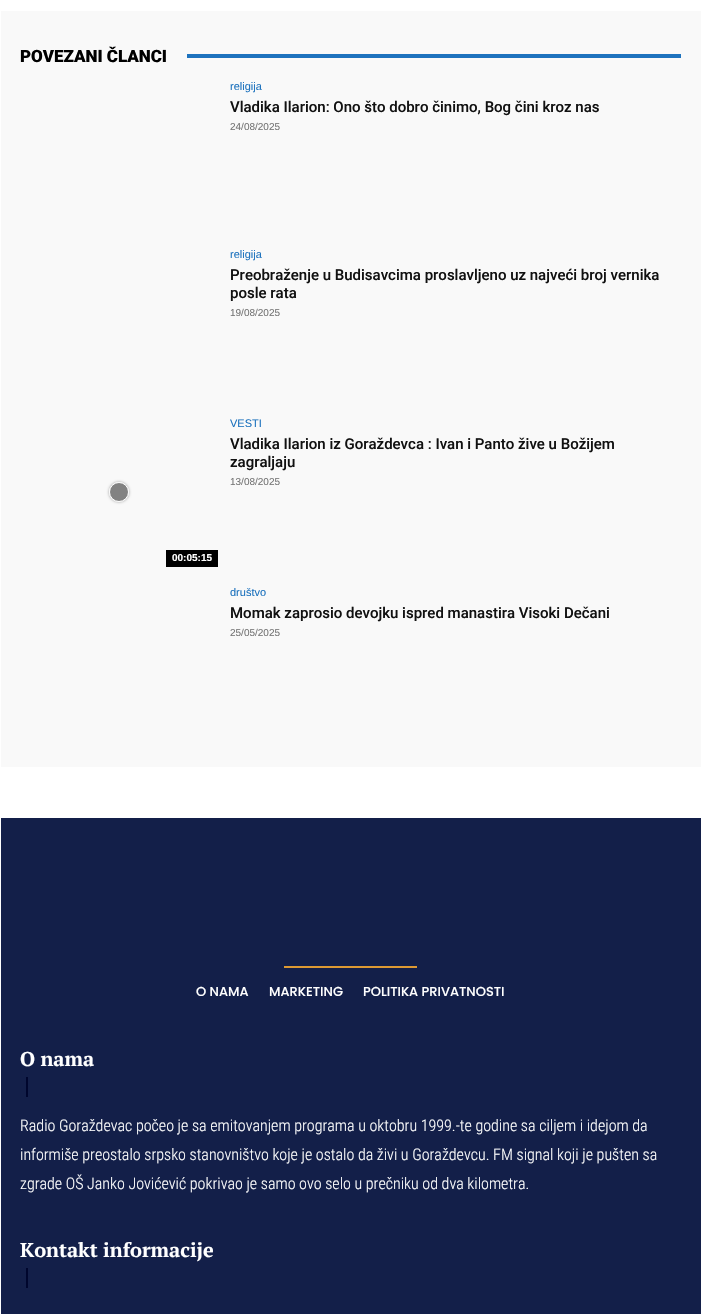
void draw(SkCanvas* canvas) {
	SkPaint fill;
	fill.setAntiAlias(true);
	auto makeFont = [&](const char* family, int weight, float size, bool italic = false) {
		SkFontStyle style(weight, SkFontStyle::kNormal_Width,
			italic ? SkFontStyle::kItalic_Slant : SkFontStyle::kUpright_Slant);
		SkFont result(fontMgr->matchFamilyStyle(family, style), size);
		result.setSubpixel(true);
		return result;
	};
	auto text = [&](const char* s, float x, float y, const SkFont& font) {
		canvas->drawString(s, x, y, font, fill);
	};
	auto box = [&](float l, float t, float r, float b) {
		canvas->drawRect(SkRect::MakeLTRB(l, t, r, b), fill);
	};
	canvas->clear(0xFFFFFFFF);
	fill.setColor(0xFFF9F9F9);
	box(1, 11, 701, 767);
	fill.setColor(0xFF1E73BE);
	box(187, 54, 681, 58);
	canvas->save();
	canvas->clipPath(SkPathBuilder(SkPathFillType::kEvenOdd).moveTo(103, 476).lineTo(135, 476).lineTo(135, 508).lineTo(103, 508).close().moveTo(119, 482).cubicTo(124.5f, 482, 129, 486.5f, 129, 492).cubicTo(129, 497.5f, 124.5f, 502, 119, 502).cubicTo(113.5f, 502, 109, 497.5f, 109, 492).cubicTo(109, 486.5f, 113.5f, 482, 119, 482).close().detach(), true);
	fill.setColor(0x66000000);
	fill.setMaskFilter(SkMaskFilter::MakeBlur(kNormal_SkBlurStyle, 1.5f));
	canvas->drawRoundRect(SkRect::MakeLTRB(109, 482, 129, 502), 10, 10, fill);
	fill.setMaskFilter(nullptr);
	canvas->restore();
	fill.setColor(0x7A000000);
	canvas->drawCircle(119, 492, 9.5f, fill);
	fill.setStyle(SkPaint::kStroke_Style);
	fill.setStrokeWidth(1);
	fill.setColor(0xFFFFFFFF);
	canvas->drawCircle(119, 492, 9.5f, fill);
	fill.setStyle(SkPaint::kFill_Style);
	fill.setColor(0xFF000000);
	box(166, 550, 218, 567);
	fill.setColor(0xFF131F49);
	box(1, 818, 701, 1314);
	fill.setColor(0xFFDD9933);
	box(284, 966, 417, 968);
	fill.setColor(0xFF00062D);
	box(26, 1077, 28, 1097);
	box(26, 1268, 28, 1288);
	auto font1 = makeFont("Roboto", 900, 17);
	fill.setColor(0xFF000000);
	text("POVEZANI ČLANCI", 20, 62, font1);
	auto font2 = makeFont("Liberation Sans", 400, 11);
	fill.setColor(0xFF1E73BE);
	text("religija", 230, 90, font2);
	auto font3 = makeFont("Roboto", 500, 15);
	fill.setColor(0xFF111111);
	text("Vladika Ilarion: Ono što dobro činimo, Bog čini kroz nas", 230, 112, font3);
	auto font4 = makeFont("Liberation Sans", 400, 10);
	fill.setColor(0xFF767676);
	text("24/08/2025", 230, 130, font4);
	fill.setColor(0xFF1E73BE);
	text("religija", 230, 258, font2);
	fill.setColor(0xFF111111);
	text("Preobraženje u Budisavcima proslavljeno uz najveći broj vernika", 230, 280, font3);
	text("posle rata", 230, 298, font3);
	fill.setColor(0xFF767676);
	text("19/08/2025", 230, 316, font4);
	fill.setColor(0xFF1E73BE);
	text("VESTI", 230, 427, font2);
	fill.setColor(0xFF111111);
	text("Vladika Ilarion iz Goraždevca : Ivan i Panto žive u Božijem", 230, 449, font3);
	text("zagraljaju", 230, 467, font3);
	fill.setColor(0xFF767676);
	text("13/08/2025", 230, 485, font4);
	auto font5 = makeFont("Liberation Sans", 700, 10);
	fill.setColor(0xFFFFFFFF);
	text("00:05:15", 172, 561, font5);
	fill.setColor(0xFF1E73BE);
	text("društvo", 230, 596, font2);
	fill.setColor(0xFF111111);
	text("Momak zaprosio devojku ispred manastira Visoki Dečani", 230, 618, font3);
	fill.setColor(0xFF767676);
	text("25/05/2025", 230, 636, font4);
	auto font6 = makeFont("Poppins", 500, 13);
	fill.setColor(0xFFFFFFFF);
	text("O NAMA", 196, 996, font6);
	text("MARKETING", 269, 996, font6);
	text("POLITIKA PRIVATNOSTI", 363, 996, font6);
	auto font7 = makeFont("PT Serif", 700, 20);
	text("O nama", 20, 1066, font7);
	auto font8 = makeFont("Roboto Condensed", 300, 16);
	text("Radio Goraždevac počeo je sa emitovanjem programa u oktobru 1999.-te godine sa ciljem i idejom da", 20, 1131, font8);
	text("informiše preostalo srpsko stanovništvo koje je ostalo da živi u Goraždevcu. FM signal koji je pušten sa", 20, 1160, font8);
	text("zgrade OŠ Janko Jovićević pokrivao je samo ovo selo u prečniku od dva kilometra.", 20, 1189, font8);
	text("Kontakt informacije", 20, 1257, font7);
}
